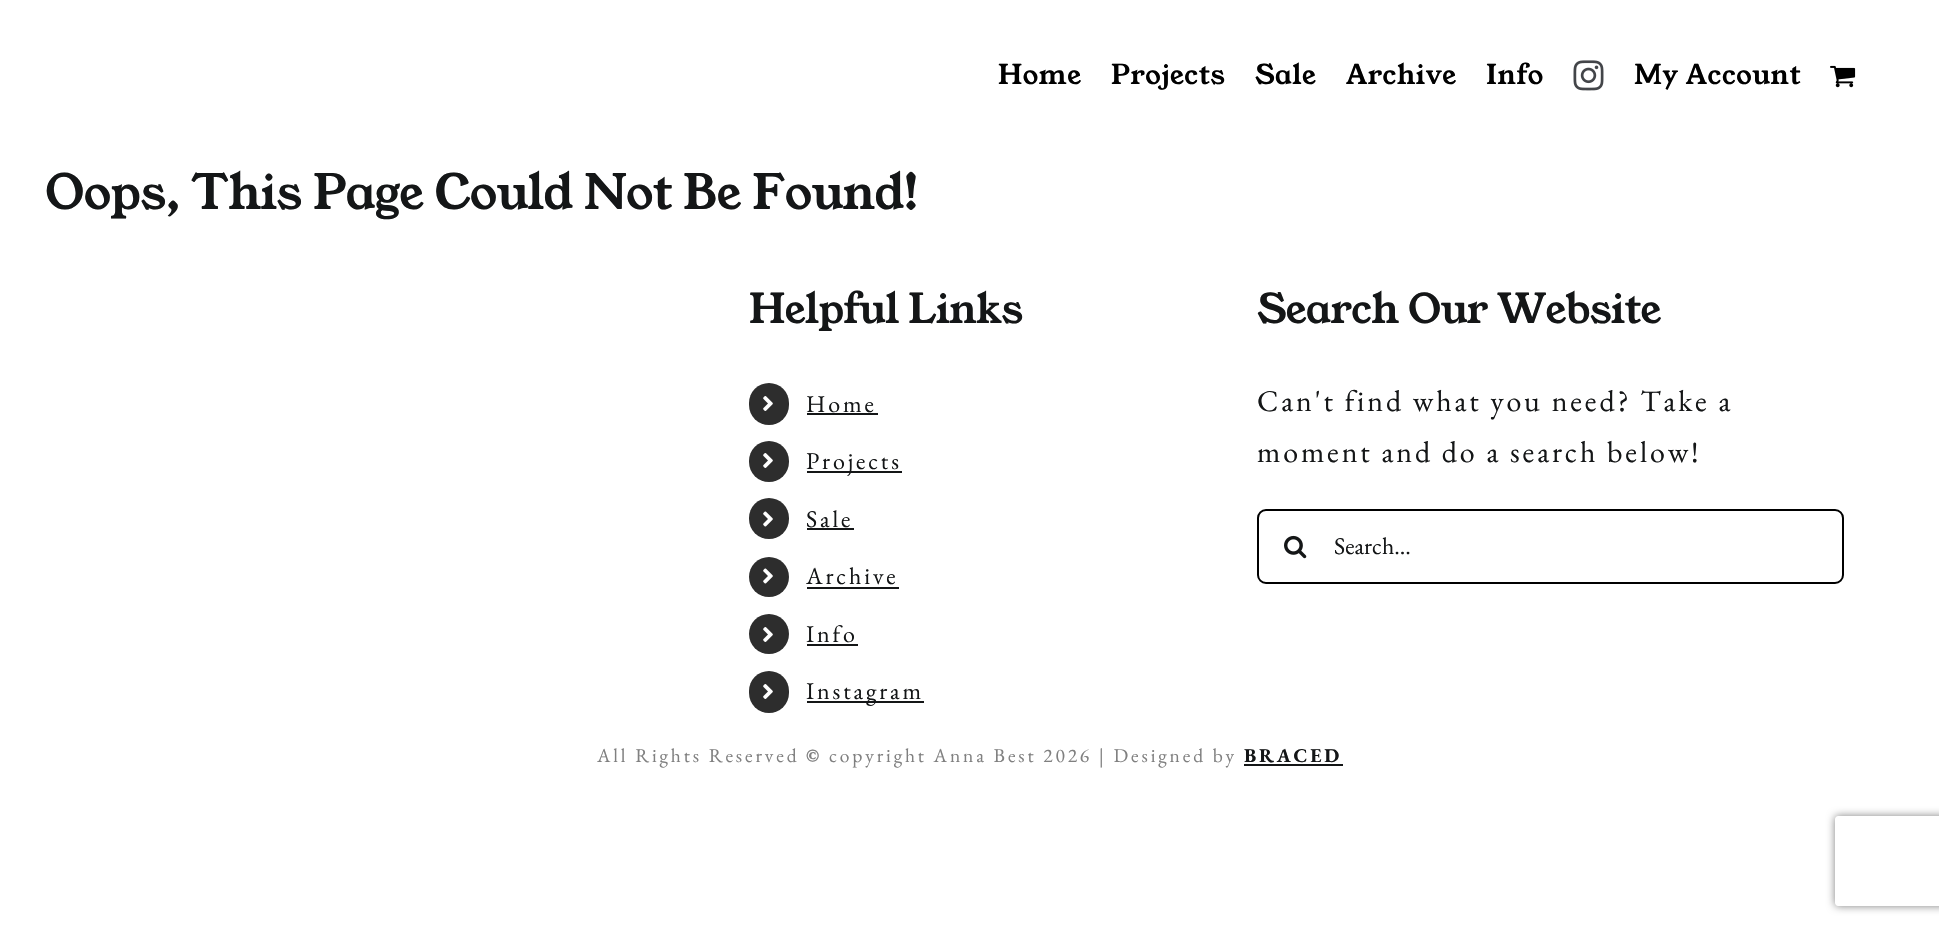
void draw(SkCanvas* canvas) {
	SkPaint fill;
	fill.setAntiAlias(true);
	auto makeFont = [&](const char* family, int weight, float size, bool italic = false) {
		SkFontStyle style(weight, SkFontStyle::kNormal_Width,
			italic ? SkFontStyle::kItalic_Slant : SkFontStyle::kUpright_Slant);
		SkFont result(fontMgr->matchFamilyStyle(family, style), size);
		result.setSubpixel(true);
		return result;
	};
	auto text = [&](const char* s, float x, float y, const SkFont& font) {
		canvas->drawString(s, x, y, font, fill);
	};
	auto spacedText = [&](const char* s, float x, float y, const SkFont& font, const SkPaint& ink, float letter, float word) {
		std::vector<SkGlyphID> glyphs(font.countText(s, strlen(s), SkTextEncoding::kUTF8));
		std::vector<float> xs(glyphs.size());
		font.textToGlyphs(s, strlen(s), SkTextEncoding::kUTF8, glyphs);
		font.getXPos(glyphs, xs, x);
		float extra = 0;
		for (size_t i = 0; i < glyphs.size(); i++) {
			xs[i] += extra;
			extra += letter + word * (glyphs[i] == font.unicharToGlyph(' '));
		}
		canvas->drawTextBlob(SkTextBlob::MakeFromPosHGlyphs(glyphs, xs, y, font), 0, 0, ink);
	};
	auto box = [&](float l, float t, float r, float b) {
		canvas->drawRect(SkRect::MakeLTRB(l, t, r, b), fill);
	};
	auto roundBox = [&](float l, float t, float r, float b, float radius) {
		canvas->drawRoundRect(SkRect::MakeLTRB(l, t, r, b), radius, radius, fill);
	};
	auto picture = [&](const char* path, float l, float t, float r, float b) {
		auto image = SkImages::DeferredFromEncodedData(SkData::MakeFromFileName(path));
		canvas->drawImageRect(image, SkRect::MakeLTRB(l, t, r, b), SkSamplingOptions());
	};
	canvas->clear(0xFFFFFFFF);
	picture("image0.png", 1573, 60, 1604, 91);
	picture("image1.png", 1830, 65, 1856, 88);
	fill.setColor(0xFF2D2D2D);
	roundBox(749, 383, 789, 425, 20);
	picture("image2.png", 763, 396, 773, 411);
	fill.setColor(0xFF141617);
	box(807, 413, 878, 415);
	fill.setColor(0xFF2D2D2D);
	roundBox(749, 441, 789, 482, 20);
	picture("image2.png", 763, 453, 773, 468);
	fill.setColor(0xFF141617);
	box(807, 471, 902, 473);
	fill.setColor(0xFF2D2D2D);
	roundBox(749, 498, 789, 539, 20);
	picture("image3.png", 763, 511, 773, 527);
	fill.setColor(0xFF141617);
	box(807, 528, 854, 530);
	fill.setColor(0xFF2D2D2D);
	canvas->drawCircle(769, 577, 20, fill);
	picture("image3.png", 763, 568, 773, 584);
	fill.setColor(0xFF141617);
	box(807, 587, 899, 589);
	fill.setColor(0xFF2D2D2D);
	canvas->drawCircle(769, 634, 20, fill);
	picture("image2.png", 763, 627, 773, 642);
	fill.setColor(0xFF141617);
	box(807, 644, 858, 646);
	fill.setColor(0xFF2D2D2D);
	roundBox(749, 671, 789, 713, 20);
	picture("image2.png", 763, 684, 773, 699);
	fill.setColor(0xFF141617);
	box(807, 701, 924, 703);
	fill.setStyle(SkPaint::kStroke_Style);
	fill.setStrokeWidth(2);
	fill.setColor(0xFF000000);
	canvas->drawRoundRect(SkRect::MakeLTRB(1258, 510, 1843, 583), 8, 8, fill);
	picture("image4.png", 1284, 535, 1307, 559);
	fill.setStyle(SkPaint::kFill_Style);
	fill.setColor(0xFF141617);
	box(1244, 764, 1343, 766);
	canvas->save();
	canvas->clipPath(SkPathBuilder(SkPathFillType::kEvenOdd).moveTo(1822, 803).lineTo(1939, 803).lineTo(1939, 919).lineTo(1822, 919).close().moveTo(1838, 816).lineTo(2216, 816).cubicTo(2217.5f, 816, 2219, 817.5f, 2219, 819).lineTo(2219, 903).cubicTo(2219, 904.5f, 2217.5f, 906, 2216, 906).lineTo(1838, 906).cubicTo(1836.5f, 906, 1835, 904.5f, 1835, 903).lineTo(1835, 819).cubicTo(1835, 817.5f, 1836.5f, 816, 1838, 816).close().detach(), true);
	fill.setColor(0xFF808080);
	fill.setMaskFilter(SkMaskFilter::MakeBlur(kNormal_SkBlurStyle, 4));
	canvas->drawRoundRect(SkRect::MakeLTRB(1835, 816, 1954, 906), 3, 3, fill);
	fill.setMaskFilter(nullptr);
	canvas->restore();
	auto font1 = makeFont("Young Serif", 400, 27);
	fill.setColor(0xFF000000);
	spacedText("Home", 998, 84, font1, fill, 0.5f, 0);
	spacedText("Projects", 1111, 84, font1, fill, 0.5f, 0);
	spacedText("Sale", 1255, 84, font1, fill, 0.5f, 0);
	spacedText("Archive", 1346, 84, font1, fill, 0.5f, 0);
	spacedText("Info", 1486, 84, font1, fill, 0.5f, 0);
	spacedText("My Account", 1634, 84, font1, fill, 0.5f, 0);
	auto font2 = makeFont("Young Serif", 400, 48);
	fill.setColor(0xFF141617);
	spacedText("Oops, This Page Could Not Be Found!", 45, 209, font2, fill, -0.7f, 0);
	auto font3 = makeFont("Young Serif", 400, 40.5f);
	spacedText("Helpful Links", 749, 323, font3, fill, -0.6f, 0);
	auto font4 = makeFont("EB Garamond", 400, 24);
	spacedText("Home", 806, 412, font4, fill, 2.85f, 0);
	spacedText("Projects", 806, 469, font4, fill, 2.85f, 0);
	spacedText("Sale", 806, 527, font4, fill, 2.85f, 0);
	spacedText("Archive", 806, 584, font4, fill, 2.85f, 0);
	spacedText("Info", 806, 642, font4, fill, 2.85f, 0);
	spacedText("Instagram", 806, 699, font4, fill, 2.85f, 0);
	spacedText("Search Our Website", 1257, 323, font3, fill, -0.6f, 0);
	auto font5 = makeFont("EB Garamond", 400, 30);
	spacedText("Can't find what you need? Take a", 1257, 411, font5, fill, 2.85f, 0);
	spacedText("moment and do a search below!", 1257, 462, font5, fill, 2.85f, 0);
	text("Search...", 1334, 554, font4);
	auto font6 = makeFont("EB Garamond", 400, 19.5f);
	fill.setColor(0xFF808080);
	spacedText("All Rights Reserved", 597, 762, font6, fill, 2.85f, 0);
	auto font7 = makeFont("EB Garamond", 700, 19.5f);
	spacedText("©", 806, 762, font7, fill, 2.85f, 0);
	spacedText("copyright Anna Best 2026 | Designed by", 829, 762, font6, fill, 2.85f, 0);
	fill.setColor(0xFF141617);
	spacedText("BRACED", 1244, 762, font7, fill, 2.85f, 0);
}
